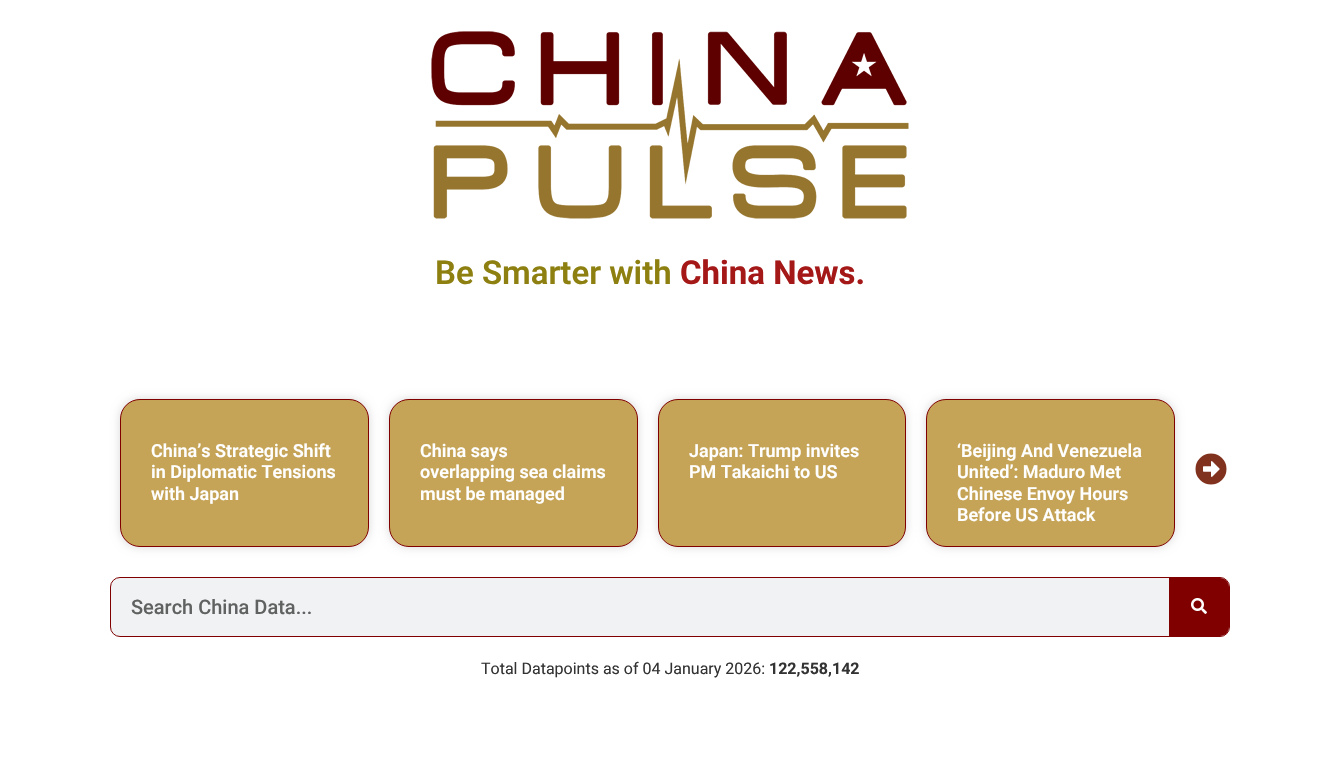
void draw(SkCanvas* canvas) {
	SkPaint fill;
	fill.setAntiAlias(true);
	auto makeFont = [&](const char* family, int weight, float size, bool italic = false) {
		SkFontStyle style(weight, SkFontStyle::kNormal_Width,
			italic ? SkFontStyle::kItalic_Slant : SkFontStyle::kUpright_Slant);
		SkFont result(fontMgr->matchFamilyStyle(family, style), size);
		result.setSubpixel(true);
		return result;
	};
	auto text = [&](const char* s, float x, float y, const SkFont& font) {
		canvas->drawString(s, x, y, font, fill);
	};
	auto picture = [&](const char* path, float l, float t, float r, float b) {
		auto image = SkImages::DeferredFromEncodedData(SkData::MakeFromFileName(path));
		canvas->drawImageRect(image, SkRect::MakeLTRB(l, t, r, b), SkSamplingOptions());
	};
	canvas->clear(0xFFFFFFFF);
	picture("image0.png", 431, 31, 909, 219);
	fill.setColor(0x26000000);
	fill.setMaskFilter(SkMaskFilter::MakeBlur(kNormal_SkBlurStyle, 5));
	canvas->drawRoundRect(SkRect::MakeLTRB(120, 399, 369, 547), 20, 20, fill);
	fill.setMaskFilter(nullptr);
	fill.setColor(0xFFC5A458);
	canvas->drawRoundRect(SkRect::MakeLTRB(120.5f, 399.5f, 368.5f, 546.5f), 19.5f, 19.5f, fill);
	fill.setStyle(SkPaint::kStroke_Style);
	fill.setStrokeWidth(1);
	fill.setColor(0xFF800000);
	canvas->drawRoundRect(SkRect::MakeLTRB(120.5f, 399.5f, 368.5f, 546.5f), 19.5f, 19.5f, fill);
	fill.setStyle(SkPaint::kFill_Style);
	fill.setColor(0x26000000);
	fill.setMaskFilter(SkMaskFilter::MakeBlur(kNormal_SkBlurStyle, 5));
	canvas->drawRoundRect(SkRect::MakeLTRB(389, 399, 638, 547), 20, 20, fill);
	fill.setMaskFilter(nullptr);
	fill.setColor(0xFFC5A458);
	canvas->drawRoundRect(SkRect::MakeLTRB(389.5f, 399.5f, 637.5f, 546.5f), 19.5f, 19.5f, fill);
	fill.setStyle(SkPaint::kStroke_Style);
	fill.setColor(0xFF800000);
	canvas->drawRoundRect(SkRect::MakeLTRB(389.5f, 399.5f, 637.5f, 546.5f), 19.5f, 19.5f, fill);
	fill.setStyle(SkPaint::kFill_Style);
	fill.setColor(0x26000000);
	fill.setMaskFilter(SkMaskFilter::MakeBlur(kNormal_SkBlurStyle, 5));
	canvas->drawRoundRect(SkRect::MakeLTRB(658, 399, 906, 547), 20, 20, fill);
	fill.setMaskFilter(nullptr);
	fill.setColor(0xFFC5A458);
	canvas->drawRoundRect(SkRect::MakeLTRB(658.5f, 399.5f, 905.5f, 546.5f), 19.5f, 19.5f, fill);
	fill.setStyle(SkPaint::kStroke_Style);
	fill.setColor(0xFF800000);
	canvas->drawRoundRect(SkRect::MakeLTRB(658.5f, 399.5f, 905.5f, 546.5f), 19.5f, 19.5f, fill);
	fill.setStyle(SkPaint::kFill_Style);
	fill.setColor(0x26000000);
	fill.setMaskFilter(SkMaskFilter::MakeBlur(kNormal_SkBlurStyle, 5));
	canvas->drawRoundRect(SkRect::MakeLTRB(926, 399, 1175, 547), 20, 20, fill);
	fill.setMaskFilter(nullptr);
	fill.setColor(0xFFC5A458);
	canvas->drawRoundRect(SkRect::MakeLTRB(926.5f, 399.5f, 1174.5f, 546.5f), 19.5f, 19.5f, fill);
	fill.setStyle(SkPaint::kStroke_Style);
	fill.setColor(0xFF800000);
	canvas->drawRoundRect(SkRect::MakeLTRB(926.5f, 399.5f, 1174.5f, 546.5f), 19.5f, 19.5f, fill);
	picture("image1.png", 1195, 453, 1227, 485);
	fill.setStyle(SkPaint::kFill_Style);
	fill.setColor(0xFFF1F2F3);
	canvas->drawRoundRect(SkRect::MakeLTRB(110.5f, 577.5f, 1229.5f, 636.5f), 9.5f, 9.5f, fill);
	fill.setStyle(SkPaint::kStroke_Style);
	fill.setColor(0xFF800000);
	canvas->drawRoundRect(SkRect::MakeLTRB(110.5f, 577.5f, 1229.5f, 636.5f), 9.5f, 9.5f, fill);
	fill.setStyle(SkPaint::kFill_Style);
	canvas->drawPath(SkPathBuilder().moveTo(1169, 578).lineTo(1220, 578).cubicTo(1225, 578, 1229, 582, 1229, 587).lineTo(1229, 627).cubicTo(1229, 632, 1225, 636, 1220, 636).lineTo(1169, 636).close().detach(), fill);
	picture("image2.png", 1191, 598, 1207, 614);
	auto font1 = makeFont("Roboto", 600, 33);
	fill.setColor(0xFF8D7F10);
	text("Be Smarter with", 435, 284, font1);
	auto font2 = makeFont("Roboto", 700, 33);
	fill.setColor(0xFFA51818);
	text("China News.", 680, 284, font2);
	auto font3 = makeFont("Roboto", 600, 18);
	fill.setColor(0xFFFFFFFF);
	text("China’s Strategic Shift", 151, 457, font3);
	text("in Diplomatic Tensions", 151, 478, font3);
	text("with Japan", 151, 500, font3);
	text("China says", 420, 457, font3);
	text("overlapping sea claims", 420, 478, font3);
	text("must be managed", 420, 500, font3);
	text("Japan: Trump invites", 689, 457, font3);
	text("PM Takaichi to US", 689, 478, font3);
	text("‘Beijing And Venezuela", 957, 457, font3);
	text("United’: Maduro Met", 957, 478, font3);
	text("Chinese Envoy Hours", 957, 500, font3);
	text("Before US Attack", 957, 521, font3);
	auto font4 = makeFont("Roboto", 500, 20);
	fill.setColor(0xFF606161);
	text("Search China Data...", 131, 614, font4);
	auto font5 = makeFont("Roboto", 400, 16);
	fill.setColor(0xFF333333);
	text("Total Datapoints as of 04 January 2026:", 481, 674, font5);
	auto font6 = makeFont("Roboto", 700, 16);
	text("122,558,142", 769, 674, font6);
}
